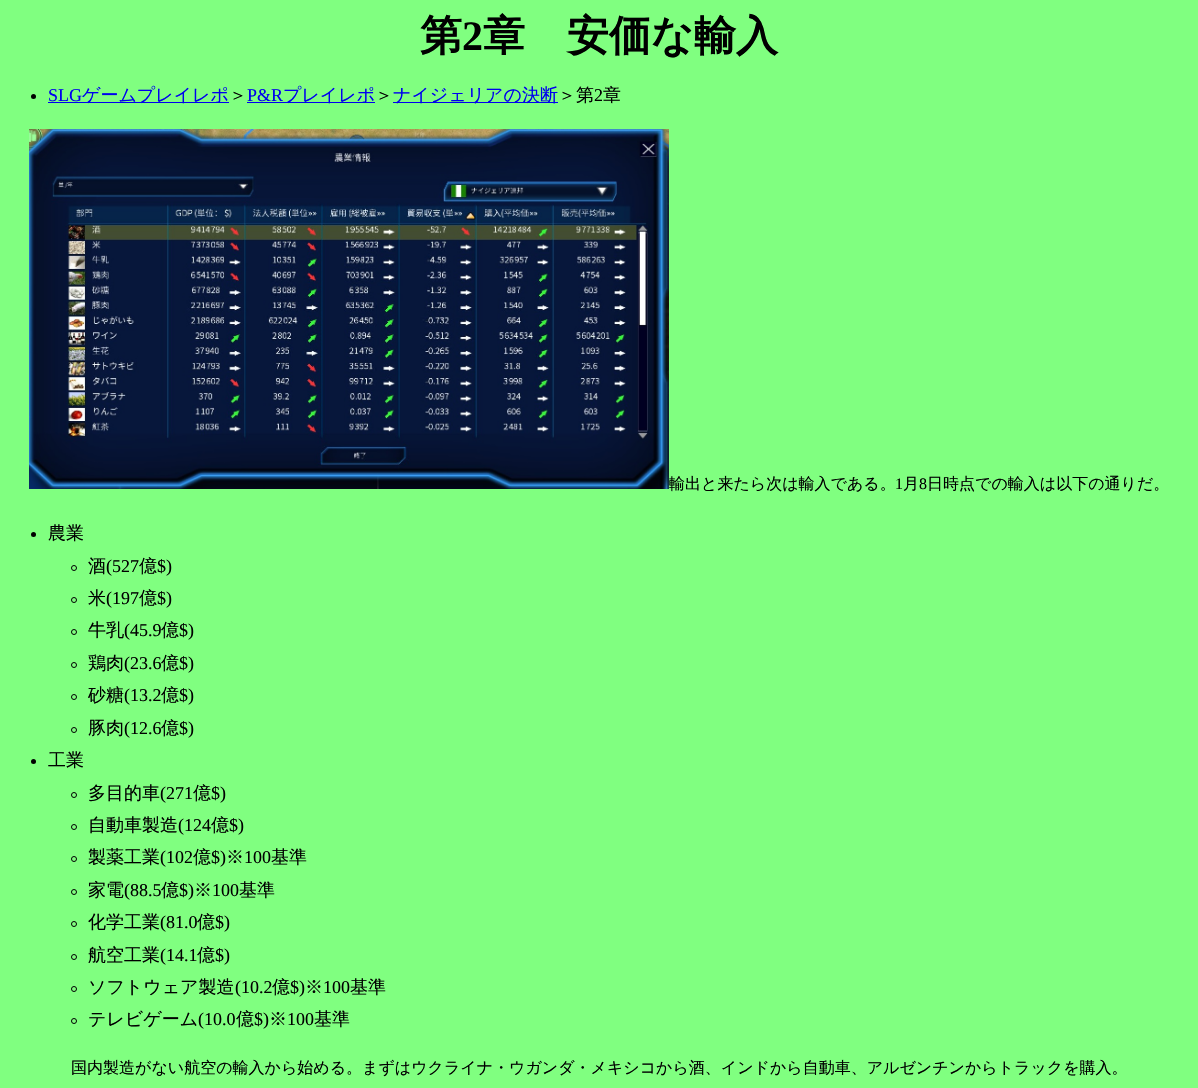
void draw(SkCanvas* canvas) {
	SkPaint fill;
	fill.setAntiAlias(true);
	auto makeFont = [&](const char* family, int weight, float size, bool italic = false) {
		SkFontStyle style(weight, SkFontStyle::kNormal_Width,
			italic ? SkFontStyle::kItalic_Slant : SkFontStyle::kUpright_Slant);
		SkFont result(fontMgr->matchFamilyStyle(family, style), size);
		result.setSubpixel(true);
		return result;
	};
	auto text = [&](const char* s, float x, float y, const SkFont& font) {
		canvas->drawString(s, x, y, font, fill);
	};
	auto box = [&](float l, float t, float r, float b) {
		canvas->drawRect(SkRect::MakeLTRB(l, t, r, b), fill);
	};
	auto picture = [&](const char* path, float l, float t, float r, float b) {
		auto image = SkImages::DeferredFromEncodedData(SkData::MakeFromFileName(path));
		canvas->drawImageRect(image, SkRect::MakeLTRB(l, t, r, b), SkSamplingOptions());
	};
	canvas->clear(0xFF80FF80);
	fill.setColor(0xFF000000);
	canvas->drawCircle(33.5f, 96.5f, 2.5f, fill);
	fill.setColor(0xFF0000EE);
	box(48, 102, 229, 103);
	box(247, 102, 375, 103);
	box(393, 102, 558, 103);
	picture("image0.png", 29, 129, 669, 489);
	fill.setColor(0xFF000000);
	canvas->drawCircle(33.5f, 534.5f, 2.5f, fill);
	fill.setStyle(SkPaint::kStroke_Style);
	fill.setStrokeWidth(1);
	canvas->drawCircle(74, 568, 2.5f, fill);
	canvas->drawCircle(74, 600, 2.5f, fill);
	canvas->drawCircle(74, 632, 2.5f, fill);
	canvas->drawCircle(74, 665, 2.5f, fill);
	canvas->drawCircle(74, 697, 2.5f, fill);
	canvas->drawCircle(74, 730, 2.5f, fill);
	fill.setStyle(SkPaint::kFill_Style);
	canvas->drawCircle(33.5f, 761.5f, 2.5f, fill);
	fill.setStyle(SkPaint::kStroke_Style);
	canvas->drawCircle(74, 795, 2.5f, fill);
	canvas->drawCircle(74, 827, 2.5f, fill);
	canvas->drawCircle(74, 859, 2.5f, fill);
	canvas->drawCircle(74, 892, 2.5f, fill);
	canvas->drawCircle(74, 924, 2.5f, fill);
	canvas->drawCircle(74, 957, 2.5f, fill);
	canvas->drawCircle(74, 989, 2.5f, fill);
	canvas->drawCircle(74, 1021, 2.5f, fill);
	auto font1 = makeFont("WenQuanYi Zen Hei", 700, 42);
	fill.setStyle(SkPaint::kFill_Style);
	text("第", 420, 50, font1);
	auto font2 = makeFont("Liberation Serif", 700, 42);
	text("2", 462, 50, font2);
	text("章　安価な輸入", 483, 50, font1);
	auto font3 = makeFont("Liberation Serif", 400, 18);
	fill.setColor(0xFF0000EE);
	text("SLG", 48, 101, font3);
	auto font4 = makeFont("WenQuanYi Zen Hei", 500, 18);
	text("ゲームプレイレポ", 82, 101, font4);
	fill.setColor(0xFF000000);
	text("＞", 229, 101, font4);
	fill.setColor(0xFF0000EE);
	text("P&R", 247, 101, font3);
	text("プレイレポ", 283, 101, font4);
	fill.setColor(0xFF000000);
	text("＞", 375, 101, font4);
	fill.setColor(0xFF0000EE);
	text("ナイジェリアの決断", 393, 101, font4);
	fill.setColor(0xFF000000);
	text("＞第", 558, 101, font4);
	text("2", 594, 101, font3);
	text("章", 603, 101, font4);
	auto font5 = makeFont("WenQuanYi Zen Hei", 500, 16);
	text("輸出と来たら次は輸入である。", 669, 489, font5);
	auto font6 = makeFont("Liberation Serif", 400, 16);
	text("1", 895, 489, font6);
	text("月", 903, 489, font5);
	text("8", 919, 489, font6);
	text("日時点での輸入は以下の通りだ。", 927, 489, font5);
	text("農業", 48, 539, font4);
	text("酒", 88, 572, font4);
	text("(527", 106, 572, font3);
	text("億", 139, 572, font4);
	text("$)", 157, 572, font3);
	text("米", 88, 604, font4);
	text("(197", 106, 604, font3);
	text("億", 139, 604, font4);
	text("$)", 157, 604, font3);
	text("牛乳", 88, 636, font4);
	text("(45.9", 124, 636, font3);
	text("億", 161, 636, font4);
	text("$)", 179, 636, font3);
	text("鶏肉", 88, 669, font4);
	text("(23.6", 124, 669, font3);
	text("億", 161, 669, font4);
	text("$)", 179, 669, font3);
	text("砂糖", 88, 701, font4);
	text("(13.2", 124, 701, font3);
	text("億", 161, 701, font4);
	text("$)", 179, 701, font3);
	text("豚肉", 88, 734, font4);
	text("(12.6", 124, 734, font3);
	text("億", 161, 734, font4);
	text("$)", 179, 734, font3);
	text("工業", 48, 766, font4);
	text("多目的車", 88, 799, font4);
	text("(271", 160, 799, font3);
	text("億", 193, 799, font4);
	text("$)", 211, 799, font3);
	text("自動車製造", 88, 831, font4);
	text("(124", 178, 831, font3);
	text("億", 211, 831, font4);
	text("$)", 229, 831, font3);
	text("製薬工業", 88, 863, font4);
	text("(102", 160, 863, font3);
	text("億", 193, 863, font4);
	text("$)", 211, 863, font3);
	text("※", 226, 863, font4);
	text("100", 244, 863, font3);
	text("基準", 271, 863, font4);
	text("家電", 88, 896, font4);
	text("(88.5", 124, 896, font3);
	text("億", 161, 896, font4);
	text("$)", 179, 896, font3);
	text("※", 194, 896, font4);
	text("100", 212, 896, font3);
	text("基準", 239, 896, font4);
	text("化学工業", 88, 928, font4);
	text("(81.0", 160, 928, font3);
	text("億", 197, 928, font4);
	text("$)", 215, 928, font3);
	text("航空工業", 88, 961, font4);
	text("(14.1", 160, 961, font3);
	text("億", 197, 961, font4);
	text("$)", 215, 961, font3);
	text("ソフトウェア製造", 88, 993, font4);
	text("(10.2", 235, 993, font3);
	text("億", 272, 993, font4);
	text("$)", 290, 993, font3);
	text("※", 305, 993, font4);
	text("100", 323, 993, font3);
	text("基準", 350, 993, font4);
	text("テレビゲーム", 88, 1025, font4);
	text("(10.0", 198, 1025, font3);
	text("億", 236, 1025, font4);
	text("$)", 254, 1025, font3);
	text("※", 269, 1025, font4);
	text("100", 287, 1025, font3);
	text("基準", 314, 1025, font4);
	text("国内製造がない航空の輸入から始める。まずはウクライナ・ウガンダ・メキシコから酒、インドから自動車、アルゼンチンからトラックを購入。", 71, 1073, font5);
}
